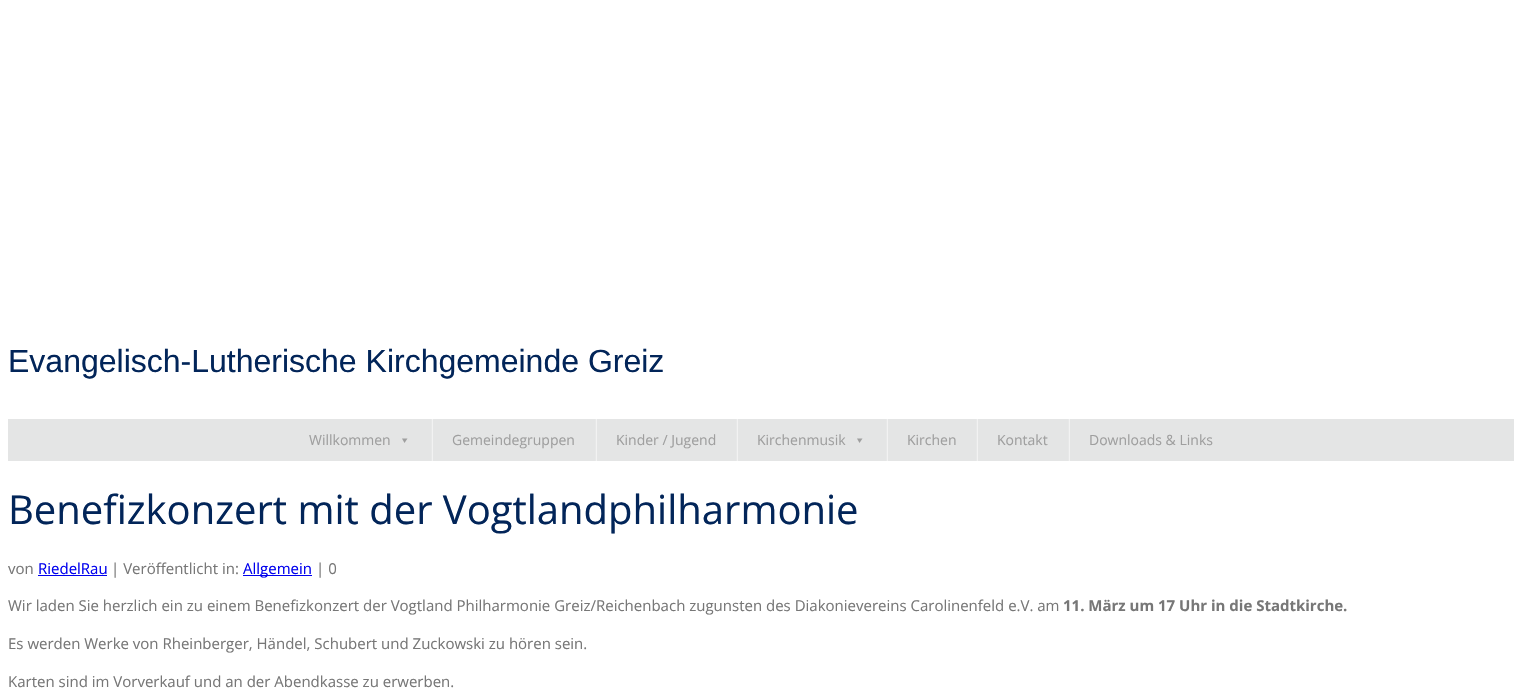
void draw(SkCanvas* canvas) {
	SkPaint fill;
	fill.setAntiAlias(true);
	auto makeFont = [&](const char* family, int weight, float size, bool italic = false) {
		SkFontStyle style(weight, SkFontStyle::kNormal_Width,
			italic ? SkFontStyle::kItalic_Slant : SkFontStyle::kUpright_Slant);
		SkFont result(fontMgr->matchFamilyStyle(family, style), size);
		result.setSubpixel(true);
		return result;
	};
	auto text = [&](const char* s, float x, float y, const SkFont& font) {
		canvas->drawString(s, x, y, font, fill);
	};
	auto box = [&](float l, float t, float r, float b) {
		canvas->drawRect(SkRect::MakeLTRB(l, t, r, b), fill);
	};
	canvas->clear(0xFFFFFFFF);
	fill.setColor(0xFFE4E5E5);
	box(8, 419, 1514, 461);
	fill.setColor(0xFF9F9F9F);
	canvas->drawPath(SkPathBuilder().moveTo(407.5f, 438.5f).lineTo(404.5f, 443).lineTo(402, 438.5f).close().detach(), fill);
	fill.setColor(0xFFF2F2F2);
	box(432, 419, 433, 461);
	fill.setColor(0xFFE7E8E8);
	box(431, 419, 432, 461);
	fill.setColor(0xFFF2F2F2);
	box(596, 419, 597, 461);
	fill.setColor(0xFFE7E8E8);
	box(595, 419, 596, 461);
	fill.setColor(0xFFF2F2F2);
	box(737, 419, 738, 461);
	fill.setColor(0xFFE7E8E8);
	box(736, 419, 737, 461);
	fill.setColor(0xFF9F9F9F);
	canvas->drawPath(SkPathBuilder().moveTo(862.5f, 438.5f).lineTo(859.5f, 443).lineTo(857, 438.5f).close().detach(), fill);
	fill.setColor(0xFFF2F2F2);
	box(887, 419, 888, 461);
	fill.setColor(0xFFE7E8E8);
	box(886, 419, 887, 461);
	fill.setColor(0xFFF2F2F2);
	box(977, 419, 978, 461);
	fill.setColor(0xFFE7E8E8);
	box(976, 419, 977, 461);
	fill.setColor(0xFFF2F2F2);
	box(1069, 419, 1070, 461);
	fill.setColor(0xFFE7E8E8);
	box(1068, 419, 1069, 461);
	fill.setColor(0xFF0000EE);
	box(38, 575, 107, 576);
	box(243, 575, 312, 576);
	auto font1 = makeFont("Liberation Sans", 400, 32);
	fill.setColor(0xFF022559);
	text("Evangelisch-Lutherische Kirchgemeinde Greiz", 8, 372, font1);
	auto font2 = makeFont("Open Sans", 400, 14);
	fill.setColor(0xFF9F9F9F);
	text("Willkommen", 309, 445, font2);
	text("Gemeindegruppen", 452, 445, font2);
	text("Kinder / Jugend", 616, 445, font2);
	text("Kirchenmusik", 757, 445, font2);
	text("Kirchen", 907, 445, font2);
	text("Kontakt", 997, 445, font2);
	text("Downloads & Links", 1089, 445, font2);
	auto font3 = makeFont("Open Sans", 400, 40);
	fill.setColor(0xFF022559);
	text("Benefizkonzert mit der Vogtlandphilharmonie", 8, 524, font3);
	auto font4 = makeFont("Open Sans", 400, 15);
	fill.setColor(0xFF777777);
	text("von", 8, 574, font4);
	fill.setColor(0xFF0000EE);
	text("RiedelRau", 38, 574, font4);
	fill.setColor(0xFF777777);
	text("| Veröffentlicht in:", 111, 574, font4);
	fill.setColor(0xFF0000EE);
	text("Allgemein", 243, 574, font4);
	fill.setColor(0xFF777777);
	text("| 0", 316, 574, font4);
	text("Wir laden Sie herzlich ein zu einem Benefizkonzert der Vogtland Philharmonie Greiz/Reichenbach zugunsten des Diakonievereins Carolinenfeld e.V. am", 8, 611, font4);
	auto font5 = makeFont("Open Sans", 700, 15);
	text("11. März um 17 Uhr in die Stadtkirche.", 1063, 611, font5);
	text("Es werden Werke von Rheinberger, Händel, Schubert und Zuckowski zu hören sein.", 8, 649, font4);
	text("Karten sind im Vorverkauf und an der Abendkasse zu erwerben.", 8, 687, font4);
}
